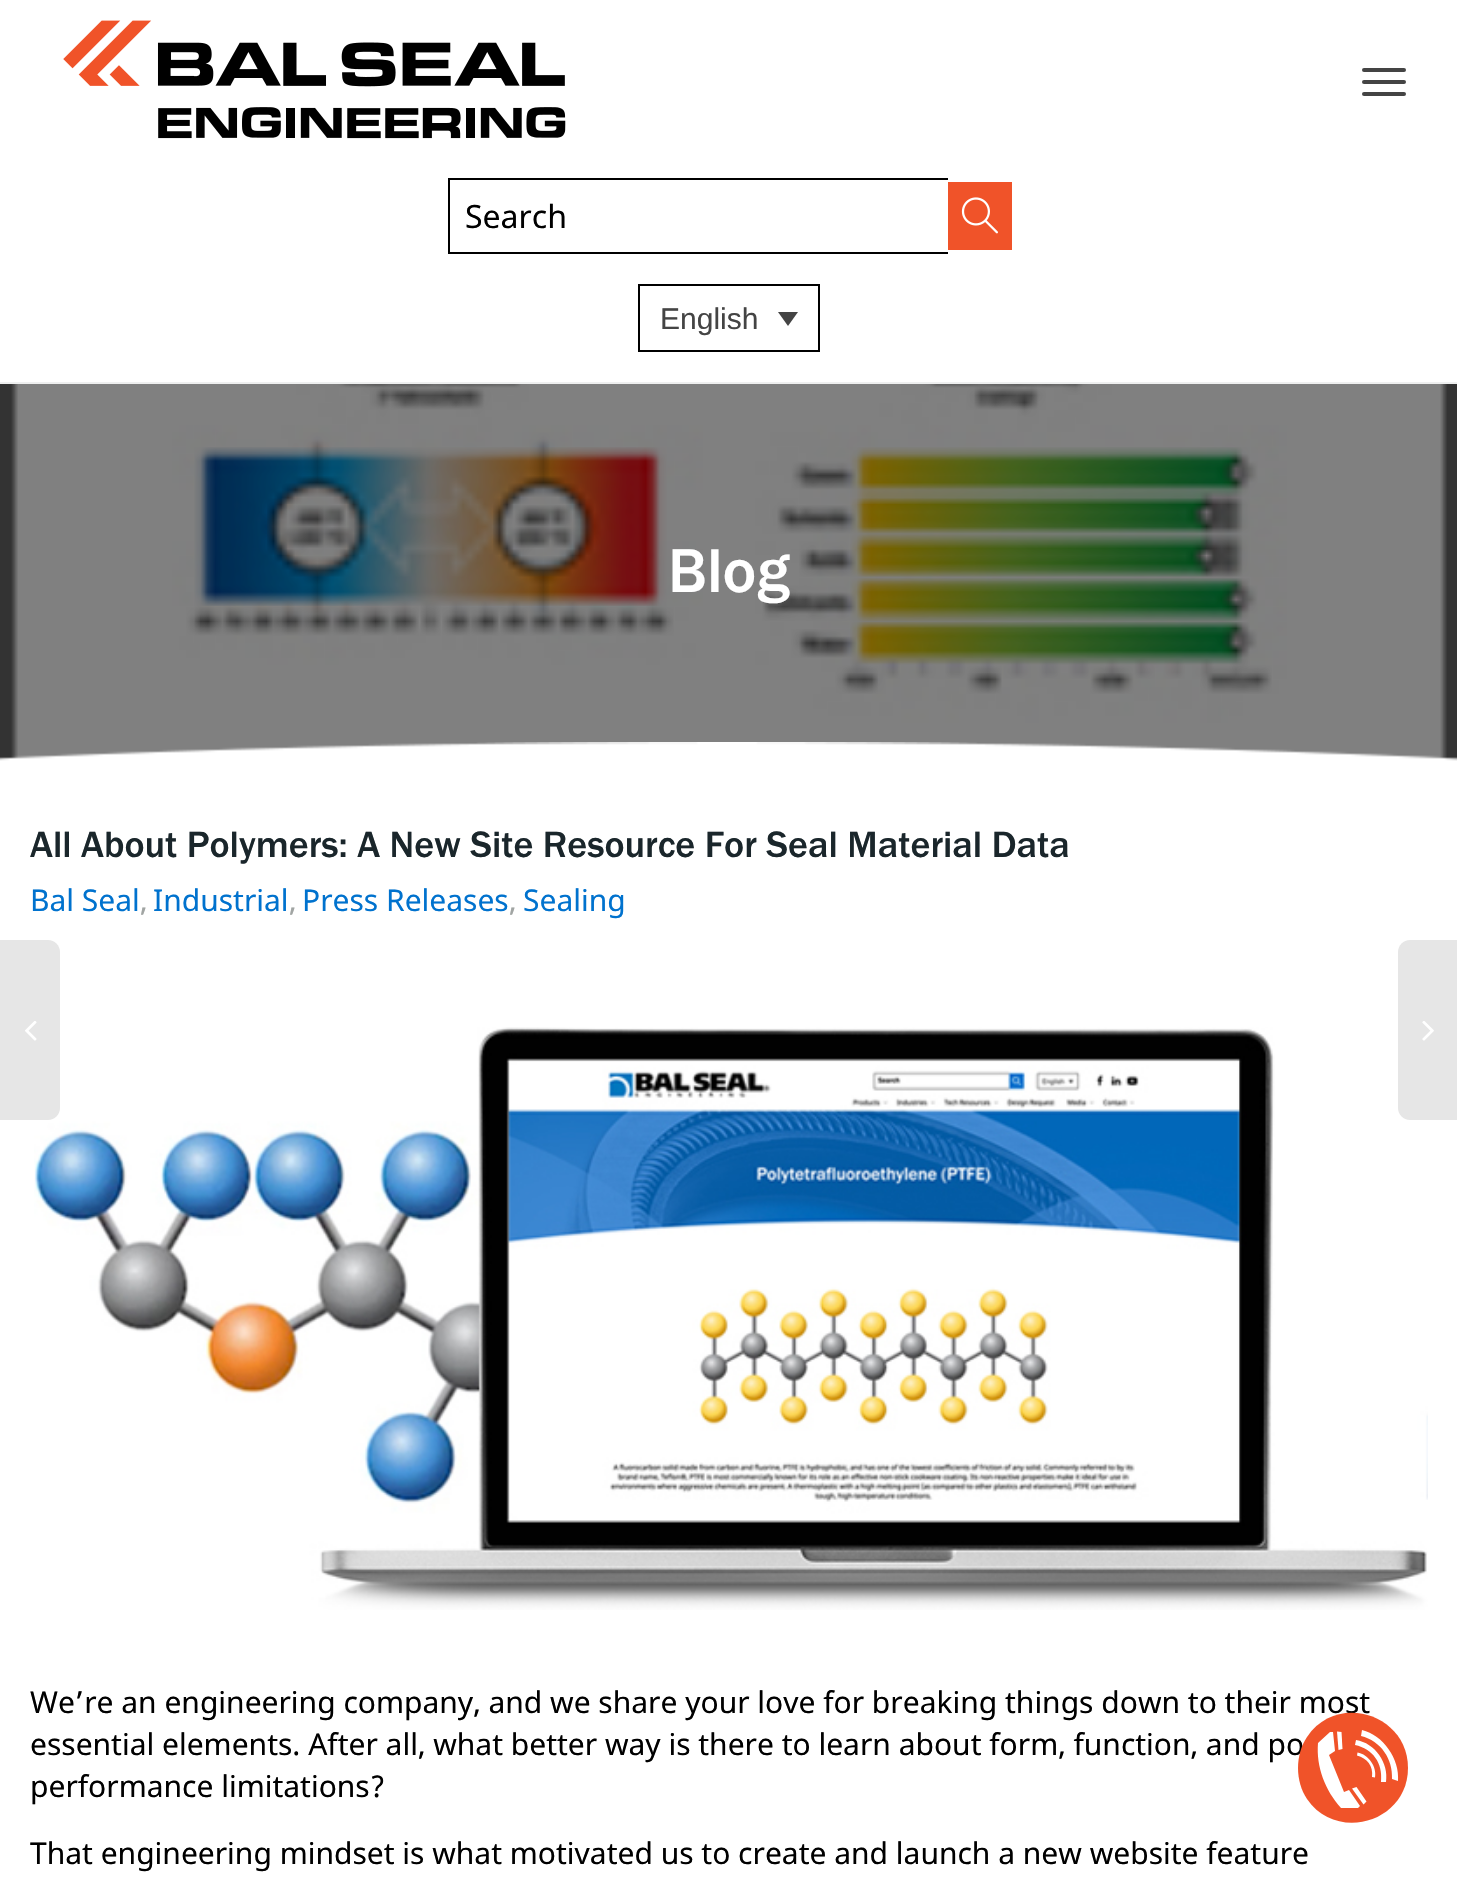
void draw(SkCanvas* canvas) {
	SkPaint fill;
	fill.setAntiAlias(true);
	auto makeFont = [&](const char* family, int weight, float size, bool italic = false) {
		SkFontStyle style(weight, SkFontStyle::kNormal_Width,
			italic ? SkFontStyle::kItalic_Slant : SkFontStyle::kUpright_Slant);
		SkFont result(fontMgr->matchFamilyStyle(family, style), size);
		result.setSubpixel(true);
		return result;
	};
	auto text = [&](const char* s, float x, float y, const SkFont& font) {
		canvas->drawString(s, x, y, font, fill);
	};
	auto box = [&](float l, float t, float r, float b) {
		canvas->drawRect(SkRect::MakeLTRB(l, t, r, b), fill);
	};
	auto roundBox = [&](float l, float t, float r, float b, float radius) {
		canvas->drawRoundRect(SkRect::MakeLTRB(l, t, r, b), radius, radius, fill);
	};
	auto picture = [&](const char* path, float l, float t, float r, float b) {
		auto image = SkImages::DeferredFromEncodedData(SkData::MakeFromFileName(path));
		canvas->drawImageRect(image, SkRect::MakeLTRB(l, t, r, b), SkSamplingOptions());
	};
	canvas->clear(0xFFFFFFFF);
	fill.setColor(0xFFEEEFEF);
	box(0, 382, 1457, 384);
	picture("image0.png", 63, 20, 566, 139);
	fill.setColor(0xFF444444);
	roundBox(1362, 68, 1406, 72, 2);
	roundBox(1362, 80, 1406, 84, 2);
	roundBox(1362, 92, 1406, 96, 2);
	fill.setColor(0xFF000000);
	box(448, 178, 948, 180);
	box(448, 252, 948, 254);
	box(448, 178, 450, 254);
	fill.setColor(0xFFF05329);
	box(948, 182, 1012, 250);
	picture("image1.png", 961, 197, 998, 234);
	fill.setStyle(SkPaint::kStroke_Style);
	fill.setStrokeWidth(2);
	fill.setColor(0xFF000000);
	canvas->drawRect(SkRect::MakeLTRB(639, 285, 819, 351), fill);
	fill.setStyle(SkPaint::kFill_Style);
	fill.setColor(0xFF444444);
	canvas->drawPath(SkPathBuilder().moveTo(778, 312).lineTo(798, 312).lineTo(788, 326).close().detach(), fill);
	picture("image2.png", 0, 384, 1457, 761);
	picture("image3.png", 0, 742, 1457, 762);
	picture("image4.png", 34, 1027, 1428, 1610);
	fill.setColor(0xFFE6E6E6);
	canvas->drawPath(SkPathBuilder().moveTo(-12, 940).lineTo(48, 940).cubicTo(54.5f, 940, 60, 945.5f, 60, 952).lineTo(60, 1108).cubicTo(60, 1114.5f, 54.5f, 1120, 48, 1120).lineTo(-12, 1120).close().detach(), fill);
	picture("image5.png", 25, 1021, 37, 1041);
	canvas->drawPath(SkPathBuilder().moveTo(1410, 940).lineTo(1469, 940).lineTo(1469, 1120).lineTo(1410, 1120).cubicTo(1403.5f, 1120, 1398, 1114.5f, 1398, 1108).lineTo(1398, 952).cubicTo(1398, 945.5f, 1403.5f, 940, 1410, 940).close().detach(), fill);
	picture("image6.png", 1422, 1021, 1434, 1041);
	auto font1 = makeFont("Noto Sans", 400, 32);
	fill.setColor(0xFF000000);
	text("Search", 465, 228, font1);
	auto font2 = makeFont("Liberation Sans", 400, 30);
	fill.setColor(0xFF444444);
	text("English", 660, 329, font2);
	auto font3 = makeFont("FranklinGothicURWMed", 400, 64);
	fill.setColor(0xFFFFFFFF);
	text("Blog", 668, 592, font3);
	auto font4 = makeFont("FranklinGothicURWMed", 400, 38);
	fill.setColor(0xFF1A262B);
	text("All About Polymers: A New Site Resource For Seal Material Data", 30, 857, font4);
	auto font5 = makeFont("Noto Sans", 400, 30);
	fill.setColor(0xFF0072CE);
	text("Bal Seal", 30, 911, font5);
	fill.setColor(0xFFA1A5A3);
	text(",", 140, 911, font5);
	fill.setColor(0xFF0072CE);
	text("Industrial", 153, 911, font5);
	fill.setColor(0xFFA1A5A3);
	text(",", 289, 911, font5);
	fill.setColor(0xFF0072CE);
	text("Press Releases", 302, 911, font5);
	fill.setColor(0xFFA1A5A3);
	text(",", 509, 911, font5);
	fill.setColor(0xFF0072CE);
	text("Sealing", 523, 911, font5);
	fill.setColor(0xFF000000);
	text("We’re an engineering company, and we share your love for breaking things down to their most", 30, 1713, font5);
	text("essential elements. After all, what better way is there to learn about form, function, and po", 30, 1755, font5);
	text("performance limitations?", 30, 1797, font5);
	text("That engineering mindset is what motivated us to create and launch a new website feature", 30, 1864, font5);
	fill.setColor(0xFFF05329);
	canvas->drawPath(SkPathBuilder().moveTo(1408, 1768).cubicTo(1408, 1822, 1337, 1843, 1307, 1799).cubicTo(1301, 1790, 1298, 1779, 1298, 1768).cubicTo(1298, 1757, 1301, 1746, 1307, 1737).cubicTo(1337, 1692, 1408, 1714, 1408, 1768).close().detach(), fill);
	fill.setColor(0xFFFFFFFF);
	canvas->drawPath(SkPathBuilder().moveTo(1318, 1743).cubicTo(1316, 1767, 1325, 1790, 1341, 1808).lineTo(1358, 1808).lineTo(1360, 1806).lineTo(1349, 1790).lineTo(1344, 1792).lineTo(1329, 1755).lineTo(1335, 1751).lineTo(1333, 1732).lineTo(1330, 1732).close().detach(), fill);
	canvas->drawPath(SkPathBuilder().moveTo(1337, 1731.5f).lineTo(1338.5f, 1750).lineTo(1342.5f, 1749).lineTo(1341.5f, 1732).close().detach(), fill);
	canvas->drawPath(SkPathBuilder().moveTo(1352, 1788.5f).lineTo(1363.5f, 1804.5f).lineTo(1366.5f, 1801.5f).lineTo(1356.5f, 1787).close().moveTo(1372, 1777).lineTo(1375, 1777.5f).cubicTo(1377, 1766.5f, 1368.5f, 1754.5f, 1357.5f, 1752.5f).lineTo(1357, 1755.5f).cubicTo(1367, 1758.5f, 1373.5f, 1765.5f, 1372, 1777).close().detach(), fill);
	canvas->drawPath(SkPathBuilder().moveTo(1381, 1782).lineTo(1386, 1782).cubicTo(1389, 1763, 1375, 1743, 1356, 1740).lineTo(1355, 1745).cubicTo(1373, 1749, 1383, 1763, 1381, 1782).close().detach(), fill);
	canvas->drawPath(SkPathBuilder().moveTo(1392, 1779).lineTo(1398, 1781).cubicTo(1400, 1759, 1383, 1735, 1362, 1730).lineTo(1361, 1736).cubicTo(1381, 1741, 1393, 1759, 1392, 1779).close().detach(), fill);
}
